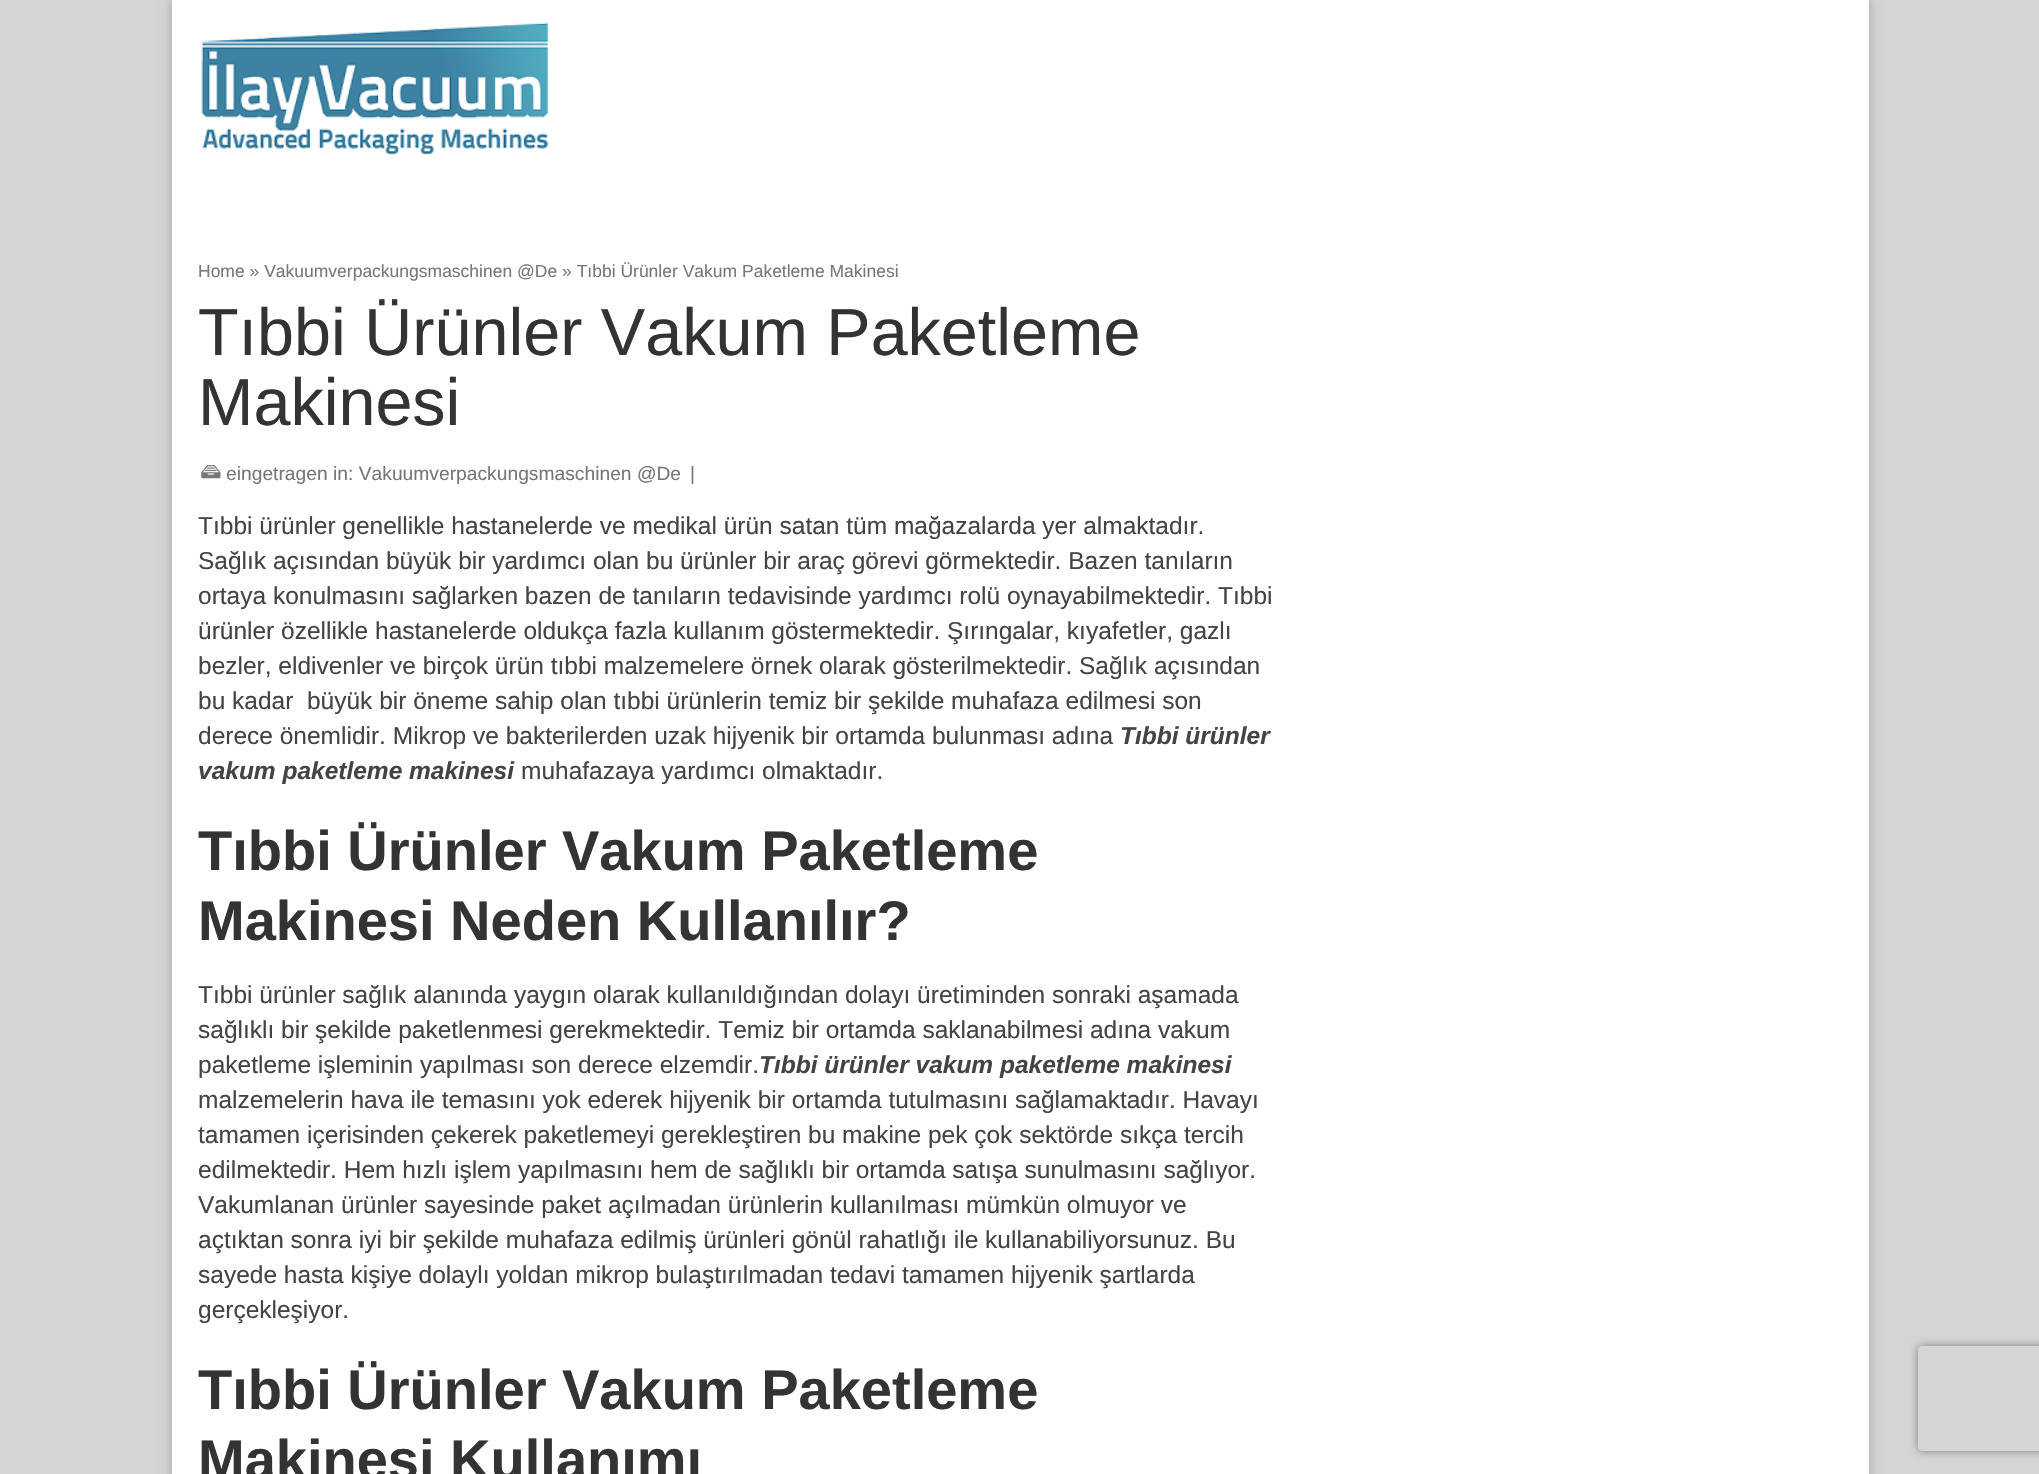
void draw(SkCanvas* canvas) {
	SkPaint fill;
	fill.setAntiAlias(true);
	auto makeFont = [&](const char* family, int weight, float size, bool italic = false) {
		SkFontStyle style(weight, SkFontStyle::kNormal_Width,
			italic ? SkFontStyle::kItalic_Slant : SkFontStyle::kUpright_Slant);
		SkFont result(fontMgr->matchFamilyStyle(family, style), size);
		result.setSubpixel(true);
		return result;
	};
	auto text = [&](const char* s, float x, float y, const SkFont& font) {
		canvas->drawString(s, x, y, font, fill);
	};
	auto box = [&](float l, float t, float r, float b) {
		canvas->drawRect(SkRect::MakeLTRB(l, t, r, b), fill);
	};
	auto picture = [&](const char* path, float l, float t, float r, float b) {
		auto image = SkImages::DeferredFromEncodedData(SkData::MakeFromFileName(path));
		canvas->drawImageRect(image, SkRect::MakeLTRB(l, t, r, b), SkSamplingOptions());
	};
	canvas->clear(0xFFD4D5D5);
	fill.setColor(0x29000000);
	fill.setMaskFilter(SkMaskFilter::MakeBlur(kNormal_SkBlurStyle, 4.5f));
	canvas->drawRect(SkRect::MakeLTRB(170, -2, 1871, 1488), fill);
	fill.setMaskFilter(nullptr);
	fill.setColor(0xFFFFFFFF);
	box(172, 0, 1869, 1474);
	picture("image0.png", 201, 22, 549, 155);
	picture("image1.png", 201, 465, 221, 479);
	canvas->save();
	canvas->clipPath(SkPathBuilder(SkPathFillType::kEvenOdd).moveTo(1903, 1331).lineTo(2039, 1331).lineTo(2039, 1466).lineTo(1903, 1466).close().moveTo(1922, 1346).lineTo(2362, 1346).cubicTo(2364, 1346, 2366, 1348, 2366, 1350).lineTo(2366, 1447).cubicTo(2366, 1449, 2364, 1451, 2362, 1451).lineTo(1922, 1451).cubicTo(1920, 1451, 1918, 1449, 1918, 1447).lineTo(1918, 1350).cubicTo(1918, 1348, 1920, 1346, 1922, 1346).close().detach(), true);
	fill.setColor(0xFF808080);
	fill.setMaskFilter(SkMaskFilter::MakeBlur(kNormal_SkBlurStyle, 4.5f));
	canvas->drawRoundRect(SkRect::MakeLTRB(1918, 1346, 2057, 1451), 4, 4, fill);
	fill.setMaskFilter(nullptr);
	canvas->restore();
	auto font1 = makeFont("Liberation Sans", 400, 17.5f);
	fill.setColor(0xFF777777);
	text("Home » Vakuumverpackungsmaschinen @De » Tıbbi Ürünler Vakum Paketleme Makinesi", 198, 277, font1);
	auto font2 = makeFont("Liberation Sans", 400, 66.5f);
	fill.setColor(0xFF333333);
	text("Tıbbi Ürünler Vakum Paketleme", 198, 355, font2);
	text("Makinesi", 198, 425, font2);
	auto font3 = makeFont("Liberation Sans", 400, 19.25f);
	fill.setColor(0xFF777777);
	text("eingetragen in: Vakuumverpackungsmaschinen @De", 226, 480, font3);
	text("|", 690, 480, font3);
	auto font4 = makeFont("Liberation Sans", 400, 24.5f);
	fill.setColor(0xFF444444);
	text("Tıbbi ürünler genellikle hastanelerde ve medikal ürün satan tüm mağazalarda yer almaktadır.", 198, 534, font4);
	text("Sağlık açısından büyük bir yardımcı olan bu ürünler bir araç görevi görmektedir. Bazen tanıların", 198, 569, font4);
	text("ortaya konulmasını sağlarken bazen de tanıların tedavisinde yardımcı rolü oynayabilmektedir. Tıbbi", 198, 604, font4);
	text("ürünler özellikle hastanelerde oldukça fazla kullanım göstermektedir. Şırıngalar, kıyafetler, gazlı", 198, 639, font4);
	text("bezler, eldivenler ve birçok ürün tıbbi malzemelere örnek olarak gösterilmektedir. Sağlık açısından", 198, 674, font4);
	text("bu kadar  büyük bir öneme sahip olan tıbbi ürünlerin temiz bir şekilde muhafaza edilmesi son", 198, 709, font4);
	text("derece önemlidir. Mikrop ve bakterilerden uzak hijyenik bir ortamda bulunması adına", 198, 744, font4);
	auto font5 = makeFont("Liberation Sans", 700, 24.5f, true);
	text("Tıbbi ürünler", 1120, 744, font5);
	text("vakum paketleme makinesi", 198, 779, font5);
	text("muhafazaya yardımcı olmaktadır.", 521, 779, font4);
	auto font6 = makeFont("Liberation Sans", 700, 56);
	fill.setColor(0xFF333333);
	text("Tıbbi Ürünler Vakum Paketleme", 198, 870, font6);
	text("Makinesi Neden Kullanılır?", 198, 940, font6);
	fill.setColor(0xFF444444);
	text("Tıbbi ürünler sağlık alanında yaygın olarak kullanıldığından dolayı üretiminden sonraki aşamada", 198, 1003, font4);
	text("sağlıklı bir şekilde paketlenmesi gerekmektedir. Temiz bir ortamda saklanabilmesi adına vakum", 198, 1038, font4);
	text("paketleme işleminin yapılması son derece elzemdir.", 198, 1073, font4);
	text("Tıbbi ürünler vakum paketleme makinesi", 759, 1073, font5);
	text("malzemelerin hava ile temasını yok ederek hijyenik bir ortamda tutulmasını sağlamaktadır. Havayı", 198, 1108, font4);
	text("tamamen içerisinden çekerek paketlemeyi gerekleştiren bu makine pek çok sektörde sıkça tercih", 198, 1143, font4);
	text("edilmektedir. Hem hızlı işlem yapılmasını hem de sağlıklı bir ortamda satışa sunulmasını sağlıyor.", 198, 1178, font4);
	text("Vakumlanan ürünler sayesinde paket açılmadan ürünlerin kullanılması mümkün olmuyor ve", 198, 1213, font4);
	text("açtıktan sonra iyi bir şekilde muhafaza edilmiş ürünleri gönül rahatlığı ile kullanabiliyorsunuz. Bu", 198, 1248, font4);
	text("sayede hasta kişiye dolaylı yoldan mikrop bulaştırılmadan tedavi tamamen hijyenik şartlarda", 198, 1283, font4);
	text("gerçekleşiyor.", 198, 1318, font4);
	fill.setColor(0xFF333333);
	text("Tıbbi Ürünler Vakum Paketleme", 198, 1409, font6);
	text("Makinesi Kullanımı", 198, 1479, font6);
}
